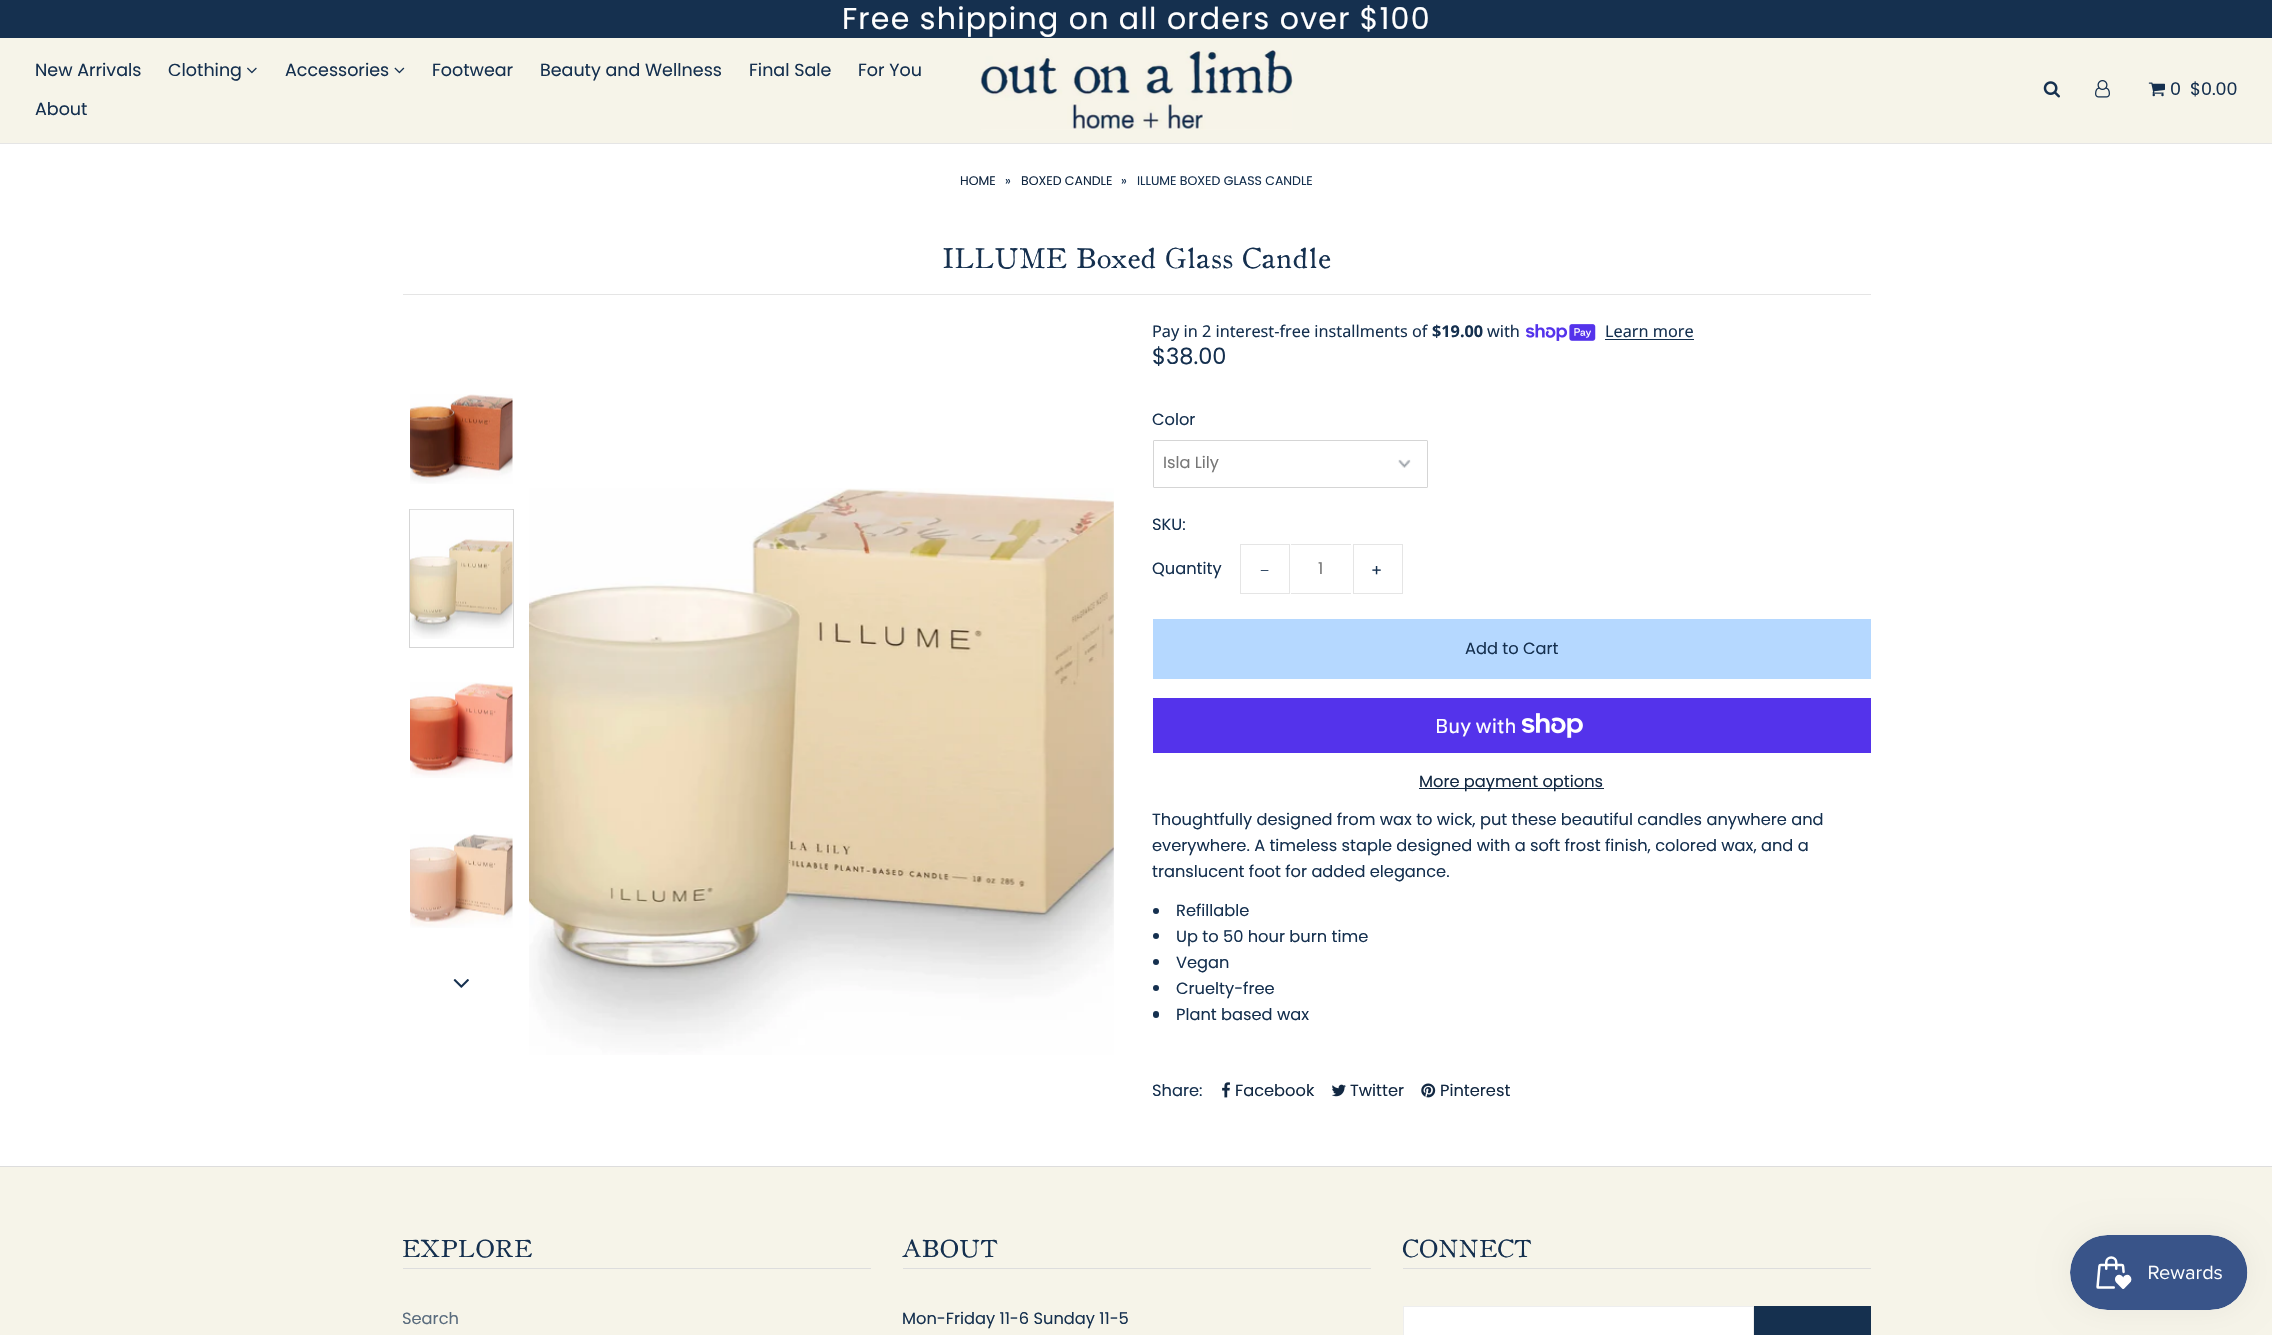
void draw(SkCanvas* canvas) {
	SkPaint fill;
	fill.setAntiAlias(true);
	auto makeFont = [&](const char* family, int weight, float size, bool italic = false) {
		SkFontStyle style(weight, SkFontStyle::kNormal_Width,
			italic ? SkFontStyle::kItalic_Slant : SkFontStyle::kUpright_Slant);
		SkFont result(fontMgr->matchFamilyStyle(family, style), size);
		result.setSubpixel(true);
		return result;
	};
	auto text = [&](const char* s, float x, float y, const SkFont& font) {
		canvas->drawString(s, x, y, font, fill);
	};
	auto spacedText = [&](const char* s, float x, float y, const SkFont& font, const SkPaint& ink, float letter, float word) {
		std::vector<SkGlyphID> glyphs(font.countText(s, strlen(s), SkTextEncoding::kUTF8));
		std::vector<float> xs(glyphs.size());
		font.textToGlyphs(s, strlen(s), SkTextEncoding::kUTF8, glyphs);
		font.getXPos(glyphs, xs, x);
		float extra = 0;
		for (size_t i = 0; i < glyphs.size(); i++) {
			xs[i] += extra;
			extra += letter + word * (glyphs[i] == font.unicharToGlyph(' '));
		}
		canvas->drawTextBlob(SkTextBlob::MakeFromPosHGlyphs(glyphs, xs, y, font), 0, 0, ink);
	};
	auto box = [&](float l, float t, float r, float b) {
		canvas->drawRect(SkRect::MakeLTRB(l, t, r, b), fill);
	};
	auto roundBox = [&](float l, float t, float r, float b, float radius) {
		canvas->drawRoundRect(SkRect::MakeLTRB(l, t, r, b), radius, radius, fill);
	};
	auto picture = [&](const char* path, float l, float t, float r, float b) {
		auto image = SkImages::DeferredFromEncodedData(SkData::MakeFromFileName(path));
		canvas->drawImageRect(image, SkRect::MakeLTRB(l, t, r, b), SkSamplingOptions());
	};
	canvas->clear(0xFFFFFFFF);
	fill.setColor(0xFFF6F4E9);
	box(0, 38, 2272, 143);
	fill.setColor(0xFFE5E5E5);
	box(0, 143, 2272, 144);
	fill.setColor(0xFF15304F);
	box(0, 0, 2272, 38);
	picture("image0.png", 247, 67, 257, 74);
	picture("image1.png", 394, 67, 405, 74);
	picture("image2.png", 980, 50, 1293, 130);
	picture("image3.png", 2043, 81, 2060, 98);
	picture("image4.png", 2095, 80, 2110, 98);
	picture("image5.png", 2148, 82, 2165, 97);
	fill.setColor(0xFFE5E5E5);
	box(403, 294, 1871, 295);
	picture("image6.png", 410, 394, 513, 484);
	fill.setStyle(SkPaint::kStroke_Style);
	fill.setStrokeWidth(1);
	fill.setColor(0xFFD5D5D5);
	canvas->drawRect(SkRect::MakeLTRB(409.5f, 509.5f, 513.5f, 647.5f), fill);
	picture("image7.png", 410, 509, 513, 639);
	picture("image8.png", 410, 682, 513, 778);
	picture("image9.png", 410, 834, 513, 928);
	picture("image10.png", 453, 979, 469, 988);
	picture("image11.png", 529, 488, 1114, 1055);
	picture("image12.png", 1526, 324, 1596, 341);
	fill.setStyle(SkPaint::kFill_Style);
	fill.setColor(0xFF15304F);
	box(1605, 339, 1694, 340);
	picture("image13.png", 1398, 459, 1411, 468);
	fill.setStyle(SkPaint::kStroke_Style);
	fill.setColor(0xFFD5D5D5);
	canvas->drawRoundRect(SkRect::MakeLTRB(1153.5f, 440.5f, 1427.5f, 487.5f), 0.5f, 0.5f, fill);
	fill.setColor(0xFFE5E5E5);
	canvas->drawRect(SkRect::MakeLTRB(1240.5f, 544.5f, 1289.5f, 593.5f), fill);
	fill.setStyle(SkPaint::kFill_Style);
	box(1291, 544, 1351, 545);
	box(1291, 593, 1351, 594);
	fill.setStyle(SkPaint::kStroke_Style);
	canvas->drawRect(SkRect::MakeLTRB(1353.5f, 544.5f, 1402.5f, 593.5f), fill);
	fill.setStyle(SkPaint::kFill_Style);
	fill.setColor(0xFFB5D8FF);
	box(1153, 619, 1871, 679);
	fill.setColor(0xFF5433EB);
	box(1153, 698, 1871, 753);
	picture("image14.png", 1521, 713, 1583, 738);
	fill.setColor(0xFF122842);
	box(1419, 788, 1604, 789);
	fill.setColor(0xFF15304F);
	canvas->drawCircle(1156, 911, 3, fill);
	canvas->drawCircle(1156, 936, 3, fill);
	canvas->drawCircle(1156, 962, 3, fill);
	canvas->drawCircle(1156, 988, 3, fill);
	roundBox(1153, 1011, 1159, 1018, 3);
	picture("image15.png", 1222, 1082, 1230, 1098);
	picture("image16.png", 1332, 1084, 1346, 1097);
	picture("image17.png", 1421, 1083, 1436, 1098);
	fill.setColor(0xFFF6F4E9);
	box(0, 1167, 2272, 1335);
	fill.setColor(0xFFDDDDDD);
	box(0, 1166, 2272, 1167);
	box(403, 1268, 871, 1269);
	box(903, 1268, 1371, 1269);
	box(1403, 1268, 1871, 1269);
	fill.setColor(0xFFFFFFFF);
	canvas->drawRect(SkRect::MakeLTRB(1403.5f, 1306.5f, 1753.5f, 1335.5f), fill);
	fill.setStyle(SkPaint::kStroke_Style);
	fill.setColor(0xFFEEEEEE);
	canvas->drawRect(SkRect::MakeLTRB(1403.5f, 1306.5f, 1753.5f, 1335.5f), fill);
	fill.setStyle(SkPaint::kFill_Style);
	fill.setColor(0xFF15304F);
	box(1754, 1306, 1871, 1335);
	fill.setColor(0x0D000000);
	fill.setMaskFilter(SkMaskFilter::MakeBlur(kNormal_SkBlurStyle, 15.5f));
	canvas->drawRoundRect(SkRect::MakeLTRB(2070, 1235, 2248, 1310), 37.5f, 37.5f, fill);
	fill.setMaskFilter(nullptr);
	picture("image18.png", 2070, 1235, 2248, 1310);
	auto font1 = makeFont("Poppins", 400, 30);
	fill.setColor(0xFFFFFFFF);
	spacedText("Free shipping on all orders over $100", 842, 29, font1, fill, 1.25f, 0);
	auto font2 = makeFont("Poppins", 400, 17.5f);
	fill.setColor(0xFF15304F);
	text("New Arrivals", 35, 76, font2);
	text("Clothing", 168, 76, font2);
	text("Accessories", 285, 76, font2);
	text("Footwear", 432, 76, font2);
	text("Beauty and Wellness", 540, 76, font2);
	text("Final Sale", 749, 76, font2);
	text("For You", 858, 76, font2);
	text("About", 35, 115, font2);
	text("0", 2170, 95, font2);
	text("$0.00", 2190, 95, font2);
	auto font3 = makeFont("Poppins", 400, 12.5f);
	fill.setColor(0xFF122842);
	text("HOME", 960, 185, font3);
	fill.setColor(0xFF15304F);
	text("»", 1005, 185, font3);
	fill.setColor(0xFF122842);
	text("BOXED CANDLE", 1021, 185, font3);
	fill.setColor(0xFF15304F);
	text("»", 1121, 185, font3);
	text("ILLUME BOXED GLASS CANDLE", 1137, 185, font3);
	auto font4 = makeFont("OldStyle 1", 400, 27.5f);
	spacedText("ILLUME Boxed Glass Candle", 942, 268, font4, fill, 1.25f, 0);
	auto font5 = makeFont("Noto Sans", 400, 16.25f);
	text("Pay in 2 interest-free installments of", 1152, 337, font5);
	auto font6 = makeFont("Noto Sans", 700, 16.25f);
	text("$19.00", 1432, 337, font6);
	text("with", 1487, 337, font5);
	text("Learn more", 1605, 337, font5);
	auto font7 = makeFont("Poppins", 400, 22.5f);
	text("$38.00", 1152, 364, font7);
	auto font8 = makeFont("Poppins", 400, 16.25f);
	text("Color", 1152, 425, font8);
	fill.setColor(0xFF777777);
	text("Isla Lily", 1163, 468, font8);
	fill.setColor(0xFF15304F);
	text("SKU:", 1152, 530, font8);
	text("Quantity", 1152, 574, font8);
	auto font9 = makeFont("Liberation Serif", 400, 16.25f);
	text("−", 1260, 576, font9);
	fill.setColor(0xFF777777);
	text("1", 1318, 574, font8);
	fill.setColor(0xFF15304F);
	text("+", 1371, 576, font8);
	text("Add to Cart", 1465, 654, font8);
	auto font10 = makeFont("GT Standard", 400, 20);
	fill.setColor(0xFFFFFFFF);
	text("Buy with", 1435, 733, font10);
	fill.setColor(0xFF122842);
	text("More payment options", 1419, 787, font8);
	fill.setColor(0xFF15304F);
	text("Thoughtfully designed from wax to wick, put these beautiful candles anywhere and", 1152, 825, font8);
	text("everywhere. A timeless staple designed with a soft frost finish, colored wax, and a", 1152, 851, font8);
	text("translucent foot for added elegance.", 1152, 877, font8);
	text("Refillable", 1176, 916, font8);
	text("Up to 50 hour burn time", 1176, 942, font8);
	text("Vegan", 1176, 968, font8);
	text("Cruelty-free", 1176, 994, font8);
	text("Plant based wax", 1176, 1020, font8);
	text("Share:", 1152, 1096, font8);
	fill.setColor(0xFF122842);
	text("Facebook", 1235, 1096, font8);
	text("Twitter", 1350, 1096, font8);
	text("Pinterest", 1440, 1096, font8);
	auto font11 = makeFont("OldStyle 1", 400, 23.75f);
	fill.setColor(0xFF15304F);
	spacedText("EXPLORE", 402, 1257, font11, fill, 1.25f, 0);
	fill.setColor(0xFF596B7D);
	text("Search", 402, 1324, font8);
	fill.setColor(0xFF15304F);
	spacedText("ABOUT", 902, 1257, font11, fill, 1.25f, 0);
	text("Mon-Friday 11-6 Sunday 11-5", 902, 1324, font8);
	spacedText("CONNECT", 1402, 1257, font11, fill, 1.25f, 0);
}
